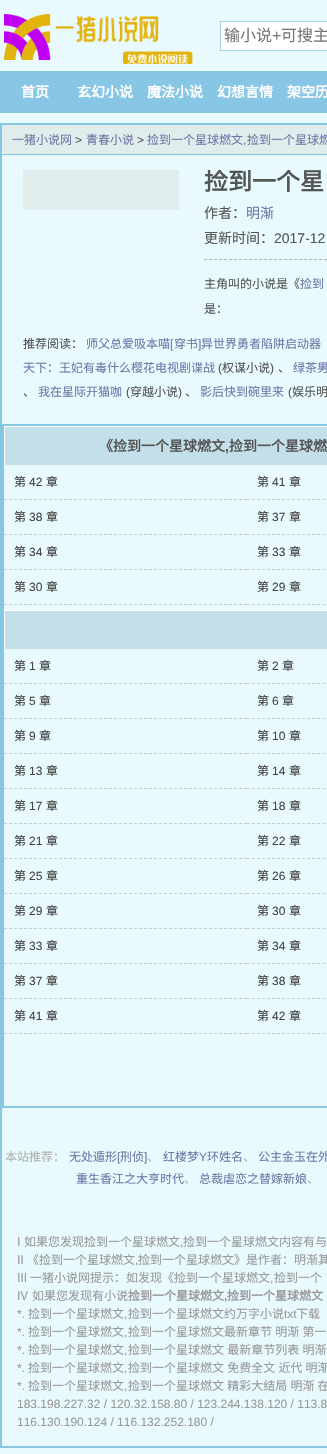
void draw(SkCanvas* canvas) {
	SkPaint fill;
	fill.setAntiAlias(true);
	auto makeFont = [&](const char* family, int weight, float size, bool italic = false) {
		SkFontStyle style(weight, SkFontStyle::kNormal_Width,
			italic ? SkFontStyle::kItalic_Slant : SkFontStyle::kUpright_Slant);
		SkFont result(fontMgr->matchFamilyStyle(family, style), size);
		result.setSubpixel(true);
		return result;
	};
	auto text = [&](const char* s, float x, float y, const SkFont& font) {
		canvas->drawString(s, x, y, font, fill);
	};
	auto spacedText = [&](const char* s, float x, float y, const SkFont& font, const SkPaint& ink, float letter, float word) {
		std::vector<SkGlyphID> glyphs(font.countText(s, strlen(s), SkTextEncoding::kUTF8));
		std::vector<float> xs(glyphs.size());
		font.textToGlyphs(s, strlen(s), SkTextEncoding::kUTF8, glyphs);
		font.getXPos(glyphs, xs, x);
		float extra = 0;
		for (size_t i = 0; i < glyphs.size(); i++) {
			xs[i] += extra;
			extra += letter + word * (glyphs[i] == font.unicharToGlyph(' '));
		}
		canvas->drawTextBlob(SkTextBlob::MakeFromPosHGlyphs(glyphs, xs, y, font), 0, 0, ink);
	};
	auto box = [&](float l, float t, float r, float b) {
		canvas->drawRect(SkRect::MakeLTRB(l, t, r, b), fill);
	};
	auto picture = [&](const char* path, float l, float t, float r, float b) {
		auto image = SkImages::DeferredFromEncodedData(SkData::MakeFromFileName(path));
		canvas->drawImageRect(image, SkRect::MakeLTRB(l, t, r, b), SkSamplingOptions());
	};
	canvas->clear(0xFFE9FAFF);
	picture("image0.png", 4, 14, 193, 64);
	fill.setColor(0xFFFFFFFF);
	canvas->drawRect(SkRect::MakeLTRB(220.5f, 21.5f, 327.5f, 50.5f), fill);
	fill.setStyle(SkPaint::kStroke_Style);
	fill.setStrokeWidth(1);
	fill.setColor(0xFFA6D3E8);
	canvas->drawRect(SkRect::MakeLTRB(220.5f, 21.5f, 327.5f, 50.5f), fill);
	fill.setStyle(SkPaint::kFill_Style);
	fill.setColor(0xFF88C6E5);
	box(0, 71, 327, 113);
	fill.setStyle(SkPaint::kStroke_Style);
	fill.setStrokeWidth(2);
	canvas->drawRect(SkRect::MakeLTRB(1, 124, 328, 1447), fill);
	fill.setStyle(SkPaint::kFill_Style);
	fill.setColor(0xFFE1ECED);
	box(2, 125, 327, 154);
	fill.setColor(0xFF88C6E5);
	box(2, 154, 327, 155);
	fill.setColor(0xFFE1ECED);
	box(23, 170, 179, 210);
	fill.setStyle(SkPaint::kStroke_Style);
	fill.setStrokeWidth(1);
	fill.setColor(0xFFB2B2B2);
	fill.setPathEffect(SkDashPathEffect::Make({{3, 2.01f}}, 0));
	canvas->drawPath(SkPathBuilder().moveTo(204, 259.5f).lineTo(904, 259.5f).detach(), fill);
	fill.setPathEffect(nullptr);
	fill.setStrokeWidth(2);
	fill.setColor(0xFF88C6E5);
	canvas->drawRect(SkRect::MakeLTRB(3, 425, 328, 1107), fill);
	fill.setStyle(SkPaint::kFill_Style);
	fill.setColor(0xFFC3DFEA);
	box(5, 427, 327, 465);
	fill.setColor(0xFFFFFFFF);
	box(4, 426, 327, 427);
	box(4, 426, 5, 465);
	fill.setStyle(SkPaint::kStroke_Style);
	fill.setStrokeWidth(1);
	fill.setColor(0xFFCCCCCC);
	fill.setPathEffect(SkDashPathEffect::Make({{3, 2}}, 0));
	canvas->drawPath(SkPathBuilder().moveTo(4, 499.5f).lineTo(247, 499.5f).detach(), fill);
	fill.setPathEffect(nullptr);
	fill.setPathEffect(SkDashPathEffect::Make({{3, 2}}, 0));
	canvas->drawPath(SkPathBuilder().moveTo(247, 499.5f).lineTo(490, 499.5f).detach(), fill);
	fill.setPathEffect(nullptr);
	fill.setPathEffect(SkDashPathEffect::Make({{3, 2}}, 0));
	canvas->drawPath(SkPathBuilder().moveTo(4, 534.5f).lineTo(247, 534.5f).detach(), fill);
	fill.setPathEffect(nullptr);
	fill.setPathEffect(SkDashPathEffect::Make({{3, 2}}, 0));
	canvas->drawPath(SkPathBuilder().moveTo(247, 534.5f).lineTo(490, 534.5f).detach(), fill);
	fill.setPathEffect(nullptr);
	fill.setPathEffect(SkDashPathEffect::Make({{3, 2}}, 0));
	canvas->drawPath(SkPathBuilder().moveTo(4, 569.5f).lineTo(247, 569.5f).detach(), fill);
	fill.setPathEffect(nullptr);
	fill.setPathEffect(SkDashPathEffect::Make({{3, 2}}, 0));
	canvas->drawPath(SkPathBuilder().moveTo(247, 569.5f).lineTo(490, 569.5f).detach(), fill);
	fill.setPathEffect(nullptr);
	fill.setPathEffect(SkDashPathEffect::Make({{3, 2}}, 0));
	canvas->drawPath(SkPathBuilder().moveTo(4, 604.5f).lineTo(247, 604.5f).detach(), fill);
	fill.setPathEffect(nullptr);
	fill.setPathEffect(SkDashPathEffect::Make({{3, 2}}, 0));
	canvas->drawPath(SkPathBuilder().moveTo(247, 604.5f).lineTo(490, 604.5f).detach(), fill);
	fill.setPathEffect(nullptr);
	fill.setStyle(SkPaint::kFill_Style);
	fill.setColor(0xFFC3DFEA);
	box(5, 611, 327, 649);
	fill.setColor(0xFFFFFFFF);
	box(4, 610, 327, 611);
	box(4, 610, 5, 649);
	fill.setStyle(SkPaint::kStroke_Style);
	fill.setColor(0xFFCCCCCC);
	fill.setPathEffect(SkDashPathEffect::Make({{3, 2}}, 0));
	canvas->drawPath(SkPathBuilder().moveTo(4, 683.5f).lineTo(247, 683.5f).detach(), fill);
	fill.setPathEffect(nullptr);
	fill.setPathEffect(SkDashPathEffect::Make({{3, 2}}, 0));
	canvas->drawPath(SkPathBuilder().moveTo(247, 683.5f).lineTo(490, 683.5f).detach(), fill);
	fill.setPathEffect(nullptr);
	fill.setPathEffect(SkDashPathEffect::Make({{3, 2}}, 0));
	canvas->drawPath(SkPathBuilder().moveTo(4, 718.5f).lineTo(247, 718.5f).detach(), fill);
	fill.setPathEffect(nullptr);
	fill.setPathEffect(SkDashPathEffect::Make({{3, 2}}, 0));
	canvas->drawPath(SkPathBuilder().moveTo(247, 718.5f).lineTo(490, 718.5f).detach(), fill);
	fill.setPathEffect(nullptr);
	fill.setPathEffect(SkDashPathEffect::Make({{3, 2}}, 0));
	canvas->drawPath(SkPathBuilder().moveTo(4, 753.5f).lineTo(247, 753.5f).detach(), fill);
	fill.setPathEffect(nullptr);
	fill.setPathEffect(SkDashPathEffect::Make({{3, 2}}, 0));
	canvas->drawPath(SkPathBuilder().moveTo(247, 753.5f).lineTo(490, 753.5f).detach(), fill);
	fill.setPathEffect(nullptr);
	fill.setPathEffect(SkDashPathEffect::Make({{3, 2}}, 0));
	canvas->drawPath(SkPathBuilder().moveTo(4, 788.5f).lineTo(247, 788.5f).detach(), fill);
	fill.setPathEffect(nullptr);
	fill.setPathEffect(SkDashPathEffect::Make({{3, 2}}, 0));
	canvas->drawPath(SkPathBuilder().moveTo(247, 788.5f).lineTo(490, 788.5f).detach(), fill);
	fill.setPathEffect(nullptr);
	fill.setPathEffect(SkDashPathEffect::Make({{3, 2}}, 0));
	canvas->drawPath(SkPathBuilder().moveTo(4, 823.5f).lineTo(247, 823.5f).detach(), fill);
	fill.setPathEffect(nullptr);
	fill.setPathEffect(SkDashPathEffect::Make({{3, 2}}, 0));
	canvas->drawPath(SkPathBuilder().moveTo(247, 823.5f).lineTo(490, 823.5f).detach(), fill);
	fill.setPathEffect(nullptr);
	fill.setPathEffect(SkDashPathEffect::Make({{3, 2}}, 0));
	canvas->drawPath(SkPathBuilder().moveTo(4, 858.5f).lineTo(247, 858.5f).detach(), fill);
	fill.setPathEffect(nullptr);
	fill.setPathEffect(SkDashPathEffect::Make({{3, 2}}, 0));
	canvas->drawPath(SkPathBuilder().moveTo(247, 858.5f).lineTo(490, 858.5f).detach(), fill);
	fill.setPathEffect(nullptr);
	fill.setPathEffect(SkDashPathEffect::Make({{3, 2}}, 0));
	canvas->drawPath(SkPathBuilder().moveTo(4, 893.5f).lineTo(247, 893.5f).detach(), fill);
	fill.setPathEffect(nullptr);
	fill.setPathEffect(SkDashPathEffect::Make({{3, 2}}, 0));
	canvas->drawPath(SkPathBuilder().moveTo(247, 893.5f).lineTo(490, 893.5f).detach(), fill);
	fill.setPathEffect(nullptr);
	fill.setPathEffect(SkDashPathEffect::Make({{3, 2}}, 0));
	canvas->drawPath(SkPathBuilder().moveTo(4, 928.5f).lineTo(247, 928.5f).detach(), fill);
	fill.setPathEffect(nullptr);
	fill.setPathEffect(SkDashPathEffect::Make({{3, 2}}, 0));
	canvas->drawPath(SkPathBuilder().moveTo(247, 928.5f).lineTo(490, 928.5f).detach(), fill);
	fill.setPathEffect(nullptr);
	fill.setPathEffect(SkDashPathEffect::Make({{3, 2}}, 0));
	canvas->drawPath(SkPathBuilder().moveTo(4, 963.5f).lineTo(247, 963.5f).detach(), fill);
	fill.setPathEffect(nullptr);
	fill.setPathEffect(SkDashPathEffect::Make({{3, 2}}, 0));
	canvas->drawPath(SkPathBuilder().moveTo(247, 963.5f).lineTo(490, 963.5f).detach(), fill);
	fill.setPathEffect(nullptr);
	fill.setPathEffect(SkDashPathEffect::Make({{3, 2}}, 0));
	canvas->drawPath(SkPathBuilder().moveTo(4, 998.5f).lineTo(247, 998.5f).detach(), fill);
	fill.setPathEffect(nullptr);
	fill.setPathEffect(SkDashPathEffect::Make({{3, 2}}, 0));
	canvas->drawPath(SkPathBuilder().moveTo(247, 998.5f).lineTo(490, 998.5f).detach(), fill);
	fill.setPathEffect(nullptr);
	fill.setPathEffect(SkDashPathEffect::Make({{3, 2}}, 0));
	canvas->drawPath(SkPathBuilder().moveTo(4, 1033.5f).lineTo(247, 1033.5f).detach(), fill);
	fill.setPathEffect(nullptr);
	fill.setPathEffect(SkDashPathEffect::Make({{3, 2}}, 0));
	canvas->drawPath(SkPathBuilder().moveTo(247, 1033.5f).lineTo(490, 1033.5f).detach(), fill);
	fill.setPathEffect(nullptr);
	auto font1 = makeFont("Noto Sans CJK SC", 400, 16);
	fill.setStyle(SkPaint::kFill_Style);
	fill.setColor(0xFF777777);
	text("输小说", 224, 41, font1);
	auto font2 = makeFont("Liberation Sans", 400, 16);
	text("+", 272, 41, font2);
	text("可搜主", 281, 41, font1);
	auto font3 = makeFont("Noto Sans CJK SC", 700, 14);
	fill.setColor(0xFFFFFFFF);
	text("首页", 21, 97, font3);
	text("玄幻小说", 77, 97, font3);
	text("魔法小说", 147, 97, font3);
	text("幻想言情", 217, 97, font3);
	text("架空历", 287, 97, font3);
	auto font4 = makeFont("Noto Sans CJK SC", 400, 12);
	fill.setColor(0xFF6F78A7);
	text("一猪小说网", 12, 144, font4);
	auto font5 = makeFont("Liberation Sans", 400, 12);
	fill.setColor(0xFF555555);
	text(">", 75, 144, font5);
	fill.setColor(0xFF6F78A7);
	text("青春小说", 86, 144, font4);
	fill.setColor(0xFF555555);
	text(">", 137, 144, font5);
	fill.setColor(0xFF6F78A7);
	text("捡到一个星球燃文", 147, 144, font4);
	text(",", 243, 144, font5);
	text("捡到一个星球燃", 247, 144, font4);
	canvas->save();
	canvas->clipRect(SkRect::MakeLTRB(204, 170, 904, 194));
	auto font6 = makeFont("Noto Sans CJK SC", 700, 24);
	fill.setColor(0xFF555555);
	text("捡到一个星", 204, 190, font6);
	canvas->restore();
	auto font7 = makeFont("Noto Sans CJK SC", 400, 14);
	text("作者：", 204, 218, font7);
	fill.setColor(0xFF6F78A7);
	text("明渐", 246, 218, font7);
	fill.setColor(0xFF555555);
	text("更新时间：", 204, 243, font7);
	auto font8 = makeFont("Liberation Sans", 400, 14);
	text("2017-12", 274, 243, font8);
	text("主角叫的小说是《", 204, 288, font4);
	fill.setColor(0xFF6F78A7);
	text("捡到", 300, 288, font4);
	fill.setColor(0xFF555555);
	text("是：", 204, 313, font4);
	text("推荐阅读：", 23, 348, font4);
	fill.setColor(0xFF6F78A7);
	text("师父总爱吸本喵", 86, 348, font4);
	text("[", 170, 348, font5);
	text("穿书", 174, 348, font4);
	text("]", 198, 348, font5);
	text("异世界勇者陷阱启动器", 201, 348, font4);
	text("天下：王妃有毒什么樱花电视剧谍战", 23, 372, font4);
	fill.setColor(0xFF555555);
	text("(", 218, 372, font5);
	text("权谋小说", 222, 372, font4);
	text(")", 270, 372, font5);
	text("、", 278, 372, font4);
	fill.setColor(0xFF6F78A7);
	text("绿茶男", 293, 372, font4);
	fill.setColor(0xFF555555);
	text("、", 23, 396, font4);
	fill.setColor(0xFF6F78A7);
	text("我在星际开猫咖", 38, 396, font4);
	fill.setColor(0xFF555555);
	text("(", 126, 396, font5);
	text("穿越小说", 130, 396, font4);
	text(")", 178, 396, font5);
	text("、", 185, 396, font4);
	fill.setColor(0xFF6F78A7);
	text("影后快到碗里来", 200, 396, font4);
	fill.setColor(0xFF555555);
	text("(", 288, 396, font5);
	text("娱乐明", 292, 396, font4);
	text("《捡到一个星球燃文", 99, 451, font3);
	auto font9 = makeFont("Liberation Sans", 700, 14);
	text(",", 225, 451, font9);
	text("捡到一个星球燃", 229, 451, font3);
	fill.setColor(0xFF444444);
	text("第", 14, 486, font4);
	text("42", 29, 486, font5);
	text("章", 46, 486, font4);
	text("第", 257, 486, font4);
	text("41", 272, 486, font5);
	text("章", 289, 486, font4);
	text("第", 14, 521, font4);
	text("38", 29, 521, font5);
	text("章", 46, 521, font4);
	text("第", 257, 521, font4);
	text("37", 272, 521, font5);
	text("章", 289, 521, font4);
	text("第", 14, 556, font4);
	text("34", 29, 556, font5);
	text("章", 46, 556, font4);
	text("第", 257, 556, font4);
	text("33", 272, 556, font5);
	text("章", 289, 556, font4);
	text("第", 14, 591, font4);
	text("30", 29, 591, font5);
	text("章", 46, 591, font4);
	text("第", 257, 591, font4);
	text("29", 272, 591, font5);
	text("章", 289, 591, font4);
	text("第", 14, 670, font4);
	text("1", 29, 670, font5);
	text("章", 39, 670, font4);
	text("第", 257, 670, font4);
	text("2", 272, 670, font5);
	text("章", 282, 670, font4);
	text("第", 14, 705, font4);
	text("5", 29, 705, font5);
	text("章", 39, 705, font4);
	text("第", 257, 705, font4);
	text("6", 272, 705, font5);
	text("章", 282, 705, font4);
	text("第", 14, 740, font4);
	text("9", 29, 740, font5);
	text("章", 39, 740, font4);
	text("第", 257, 740, font4);
	text("10", 272, 740, font5);
	text("章", 289, 740, font4);
	text("第", 14, 775, font4);
	text("13", 29, 775, font5);
	text("章", 46, 775, font4);
	text("第", 257, 775, font4);
	text("14", 272, 775, font5);
	text("章", 289, 775, font4);
	text("第", 14, 810, font4);
	text("17", 29, 810, font5);
	text("章", 46, 810, font4);
	text("第", 257, 810, font4);
	text("18", 272, 810, font5);
	text("章", 289, 810, font4);
	text("第", 14, 845, font4);
	text("21", 29, 845, font5);
	text("章", 46, 845, font4);
	text("第", 257, 845, font4);
	text("22", 272, 845, font5);
	text("章", 289, 845, font4);
	text("第", 14, 880, font4);
	text("25", 29, 880, font5);
	text("章", 46, 880, font4);
	text("第", 257, 880, font4);
	text("26", 272, 880, font5);
	text("章", 289, 880, font4);
	text("第", 14, 915, font4);
	text("29", 29, 915, font5);
	text("章", 46, 915, font4);
	text("第", 257, 915, font4);
	text("30", 272, 915, font5);
	text("章", 289, 915, font4);
	text("第", 14, 950, font4);
	text("33", 29, 950, font5);
	text("章", 46, 950, font4);
	text("第", 257, 950, font4);
	text("34", 272, 950, font5);
	text("章", 289, 950, font4);
	text("第", 14, 985, font4);
	text("37", 29, 985, font5);
	text("章", 46, 985, font4);
	text("第", 257, 985, font4);
	text("38", 272, 985, font5);
	text("章", 289, 985, font4);
	text("第", 14, 1020, font4);
	text("41", 29, 1020, font5);
	text("章", 46, 1020, font4);
	text("第", 257, 1020, font4);
	text("42", 272, 1020, font5);
	text("章", 289, 1020, font4);
	fill.setColor(0xFFB2B2B2);
	text("本站推荐：", 5, 1161, font4);
	fill.setColor(0xFF6F78A7);
	text("无处遁形", 69, 1161, font4);
	text("[", 117, 1161, font5);
	text("刑侦", 120, 1161, font4);
	text("]", 144, 1161, font5);
	fill.setColor(0xFFB2B2B2);
	text("、", 147, 1161, font4);
	fill.setColor(0xFF6F78A7);
	text("红楼梦", 163, 1161, font4);
	text("Y", 199, 1161, font5);
	text("环姓名", 207, 1161, font4);
	fill.setColor(0xFFB2B2B2);
	text("、", 243, 1161, font4);
	fill.setColor(0xFF6F78A7);
	text("公主金玉在外", 258, 1161, font4);
	text("重生香江之大亨时代", 76, 1183, font4);
	fill.setColor(0xFFB2B2B2);
	text("、", 184, 1183, font4);
	fill.setColor(0xFF6F78A7);
	text("总裁虐恋之替嫁新娘", 199, 1183, font4);
	fill.setColor(0xFFB2B2B2);
	text("、", 307, 1183, font4);
	auto font10 = makeFont("FreeSans", 400, 12);
	fill.setColor(0xFF999999);
	text("Ⅰ", 17, 1246, font10);
	text("如果您发现捡到一个星球燃文", 24, 1246, font4);
	text(",", 180, 1246, font5);
	text("捡到一个星球燃文内容有与", 183, 1246, font4);
	text("Ⅱ", 17, 1264, font10);
	text("《捡到一个星球燃文", 27, 1264, font4);
	text(",", 135, 1264, font5);
	text("捡到一个星球燃文》是作者：明渐其", 138, 1264, font4);
	text("Ⅲ", 17, 1282, font10);
	text("一猪小说网提示：如发现《捡到一个星球燃文", 30, 1282, font4);
	text(",", 270, 1282, font5);
	text("捡到一个", 274, 1282, font4);
	text("Ⅳ", 17, 1300, font10);
	text("如果您发现有小说", 32, 1300, font4);
	auto font11 = makeFont("Noto Sans CJK SC", 700, 12);
	text("捡到一个星球燃文", 128, 1300, font11);
	auto font12 = makeFont("Liberation Sans", 700, 12);
	text(",", 224, 1300, font12);
	text("捡到一个星球燃文", 227, 1300, font11);
	text("*.", 17, 1318, font5);
	text("捡到一个星球燃文", 28, 1318, font4);
	text(",", 124, 1318, font5);
	text("捡到一个星球燃文约万字小说", 128, 1318, font4);
	text("txt", 284, 1318, font5);
	spacedText("下载", 296, 1318, font4, fill, 0, 0.5f);
	text("*.", 17, 1336, font5);
	text("捡到一个星球燃文", 28, 1336, font4);
	text(",", 124, 1336, font5);
	spacedText("捡到一个星球燃文最新章节 明渐 第一", 128, 1336, font4, fill, 0, 0.5f);
	text("*.", 17, 1354, font5);
	text("捡到一个星球燃文", 28, 1354, font4);
	text(",", 124, 1354, font5);
	spacedText("捡到一个星球燃文 最新章节列表 明渐", 128, 1354, font4, fill, 0, 0.5f);
	text("*.", 17, 1372, font5);
	text("捡到一个星球燃文", 28, 1372, font4);
	text(",", 124, 1372, font5);
	spacedText("捡到一个星球燃文 免费全文 近代 明渐", 128, 1372, font4, fill, 0, 0.5f);
	text("*.", 17, 1390, font5);
	text("捡到一个星球燃文", 28, 1390, font4);
	text(",", 124, 1390, font5);
	spacedText("捡到一个星球燃文 精彩大结局 明渐 在", 128, 1390, font4, fill, 0, 0.5f);
	text("183.198.227.32 / 120.32.158.80 / 123.244.138.120 / 113.8", 17, 1408, font5);
	text("116.130.190.124 / 116.132.252.180 /", 17, 1426, font5);
}
